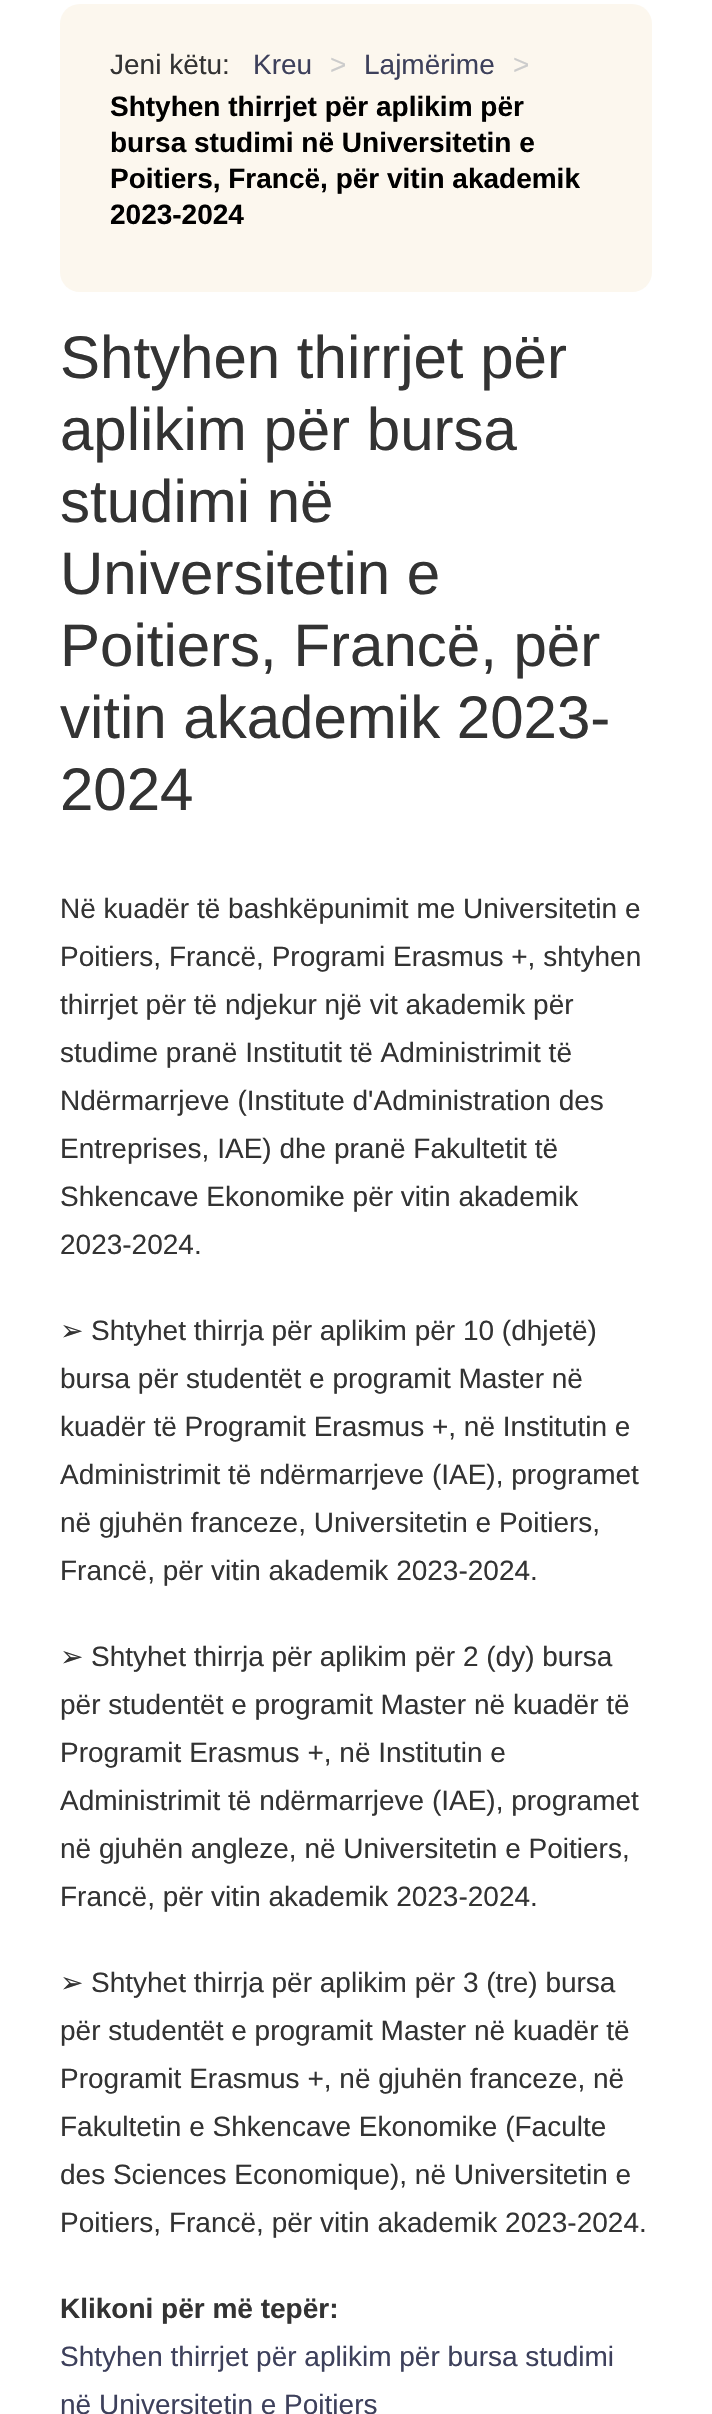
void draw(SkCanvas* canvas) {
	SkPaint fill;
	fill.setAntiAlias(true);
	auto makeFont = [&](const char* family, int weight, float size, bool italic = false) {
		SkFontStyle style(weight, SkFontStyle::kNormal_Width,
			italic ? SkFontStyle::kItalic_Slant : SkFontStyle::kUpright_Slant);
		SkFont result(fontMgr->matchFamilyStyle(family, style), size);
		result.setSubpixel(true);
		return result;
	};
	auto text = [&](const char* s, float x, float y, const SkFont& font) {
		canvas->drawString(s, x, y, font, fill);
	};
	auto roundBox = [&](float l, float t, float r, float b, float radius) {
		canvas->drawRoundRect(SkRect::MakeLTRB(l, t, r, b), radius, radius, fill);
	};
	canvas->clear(0xFFFFFFFF);
	fill.setColor(0xFFFCF7EE);
	roundBox(60, 4, 652, 292, 20);
	auto font1 = makeFont("Liberation Sans", 400, 28);
	fill.setColor(0xFF333333);
	text("Jeni këtu:", 110, 74, font1);
	fill.setColor(0xFF3D405B);
	text("Kreu", 253, 74, font1);
	fill.setColor(0xFFCCCCCC);
	text(">", 330, 74, font1);
	fill.setColor(0xFF3D405B);
	text("Lajmërime", 364, 74, font1);
	fill.setColor(0xFFCCCCCC);
	text(">", 513, 74, font1);
	auto font2 = makeFont("Liberation Sans", 700, 28);
	fill.setColor(0xFF000000);
	text("Shtyhen thirrjet për aplikim për", 110, 116, font2);
	text("bursa studimi në Universitetin e", 110, 152, font2);
	text("Poitiers, Francë, për vitin akademik", 110, 188, font2);
	text("2023-2024", 110, 224, font2);
	auto font3 = makeFont("Liberation Sans", 400, 60);
	fill.setColor(0xFF333333);
	text("Shtyhen thirrjet për", 60, 378, font3);
	text("aplikim për bursa", 60, 450, font3);
	text("studimi në", 60, 522, font3);
	text("Universitetin e", 60, 594, font3);
	text("Poitiers, Francë, për", 60, 666, font3);
	text("vitin akademik 2023-", 60, 738, font3);
	text("2024", 60, 810, font3);
	text("Në kuadër të bashkëpunimit me Universitetin e", 60, 918, font1);
	text("Poitiers, Francë, Programi Erasmus +, shtyhen", 60, 966, font1);
	text("thirrjet për të ndjekur një vit akademik për", 60, 1014, font1);
	text("studime pranë Institutit të Administrimit të", 60, 1062, font1);
	text("Ndërmarrjeve (Institute d'Administration des", 60, 1110, font1);
	text("Entreprises, IAE) dhe pranë Fakultetit të", 60, 1158, font1);
	text("Shkencave Ekonomike për vitin akademik", 60, 1206, font1);
	text("2023-2024.", 60, 1254, font1);
	auto font4 = makeFont("DejaVu Sans", 400, 28);
	text("➢", 60, 1340, font4);
	text("Shtyhet thirrja për aplikim për 10 (dhjetë)", 91, 1340, font1);
	text("bursa për studentët e programit Master në", 60, 1388, font1);
	text("kuadër të Programit Erasmus +, në Institutin e", 60, 1436, font1);
	text("Administrimit të ndërmarrjeve (IAE), programet", 60, 1484, font1);
	text("në gjuhën franceze, Universitetin e Poitiers,", 60, 1532, font1);
	text("Francë, për vitin akademik 2023-2024.", 60, 1580, font1);
	text("➢", 60, 1666, font4);
	text("Shtyhet thirrja për aplikim për 2 (dy) bursa", 91, 1666, font1);
	text("për studentët e programit Master në kuadër të", 60, 1714, font1);
	text("Programit Erasmus +, në Institutin e", 60, 1762, font1);
	text("Administrimit të ndërmarrjeve (IAE), programet", 60, 1810, font1);
	text("në gjuhën angleze, në Universitetin e Poitiers,", 60, 1858, font1);
	text("Francë, për vitin akademik 2023-2024.", 60, 1906, font1);
	text("➢", 60, 1992, font4);
	text("Shtyhet thirrja për aplikim për 3 (tre) bursa", 91, 1992, font1);
	text("për studentët e programit Master në kuadër të", 60, 2040, font1);
	text("Programit Erasmus +, në gjuhën franceze, në", 60, 2088, font1);
	text("Fakultetin e Shkencave Ekonomike (Faculte", 60, 2136, font1);
	text("des Sciences Economique), në Universitetin e", 60, 2184, font1);
	text("Poitiers, Francë, për vitin akademik 2023-2024.", 60, 2232, font1);
	text("Klikoni për më tepër:", 60, 2318, font2);
	fill.setColor(0xFF3D405B);
	text("Shtyhen thirrjet për aplikim për bursa studimi", 60, 2366, font1);
	text("në Universitetin e Poitiers", 60, 2414, font1);
}
